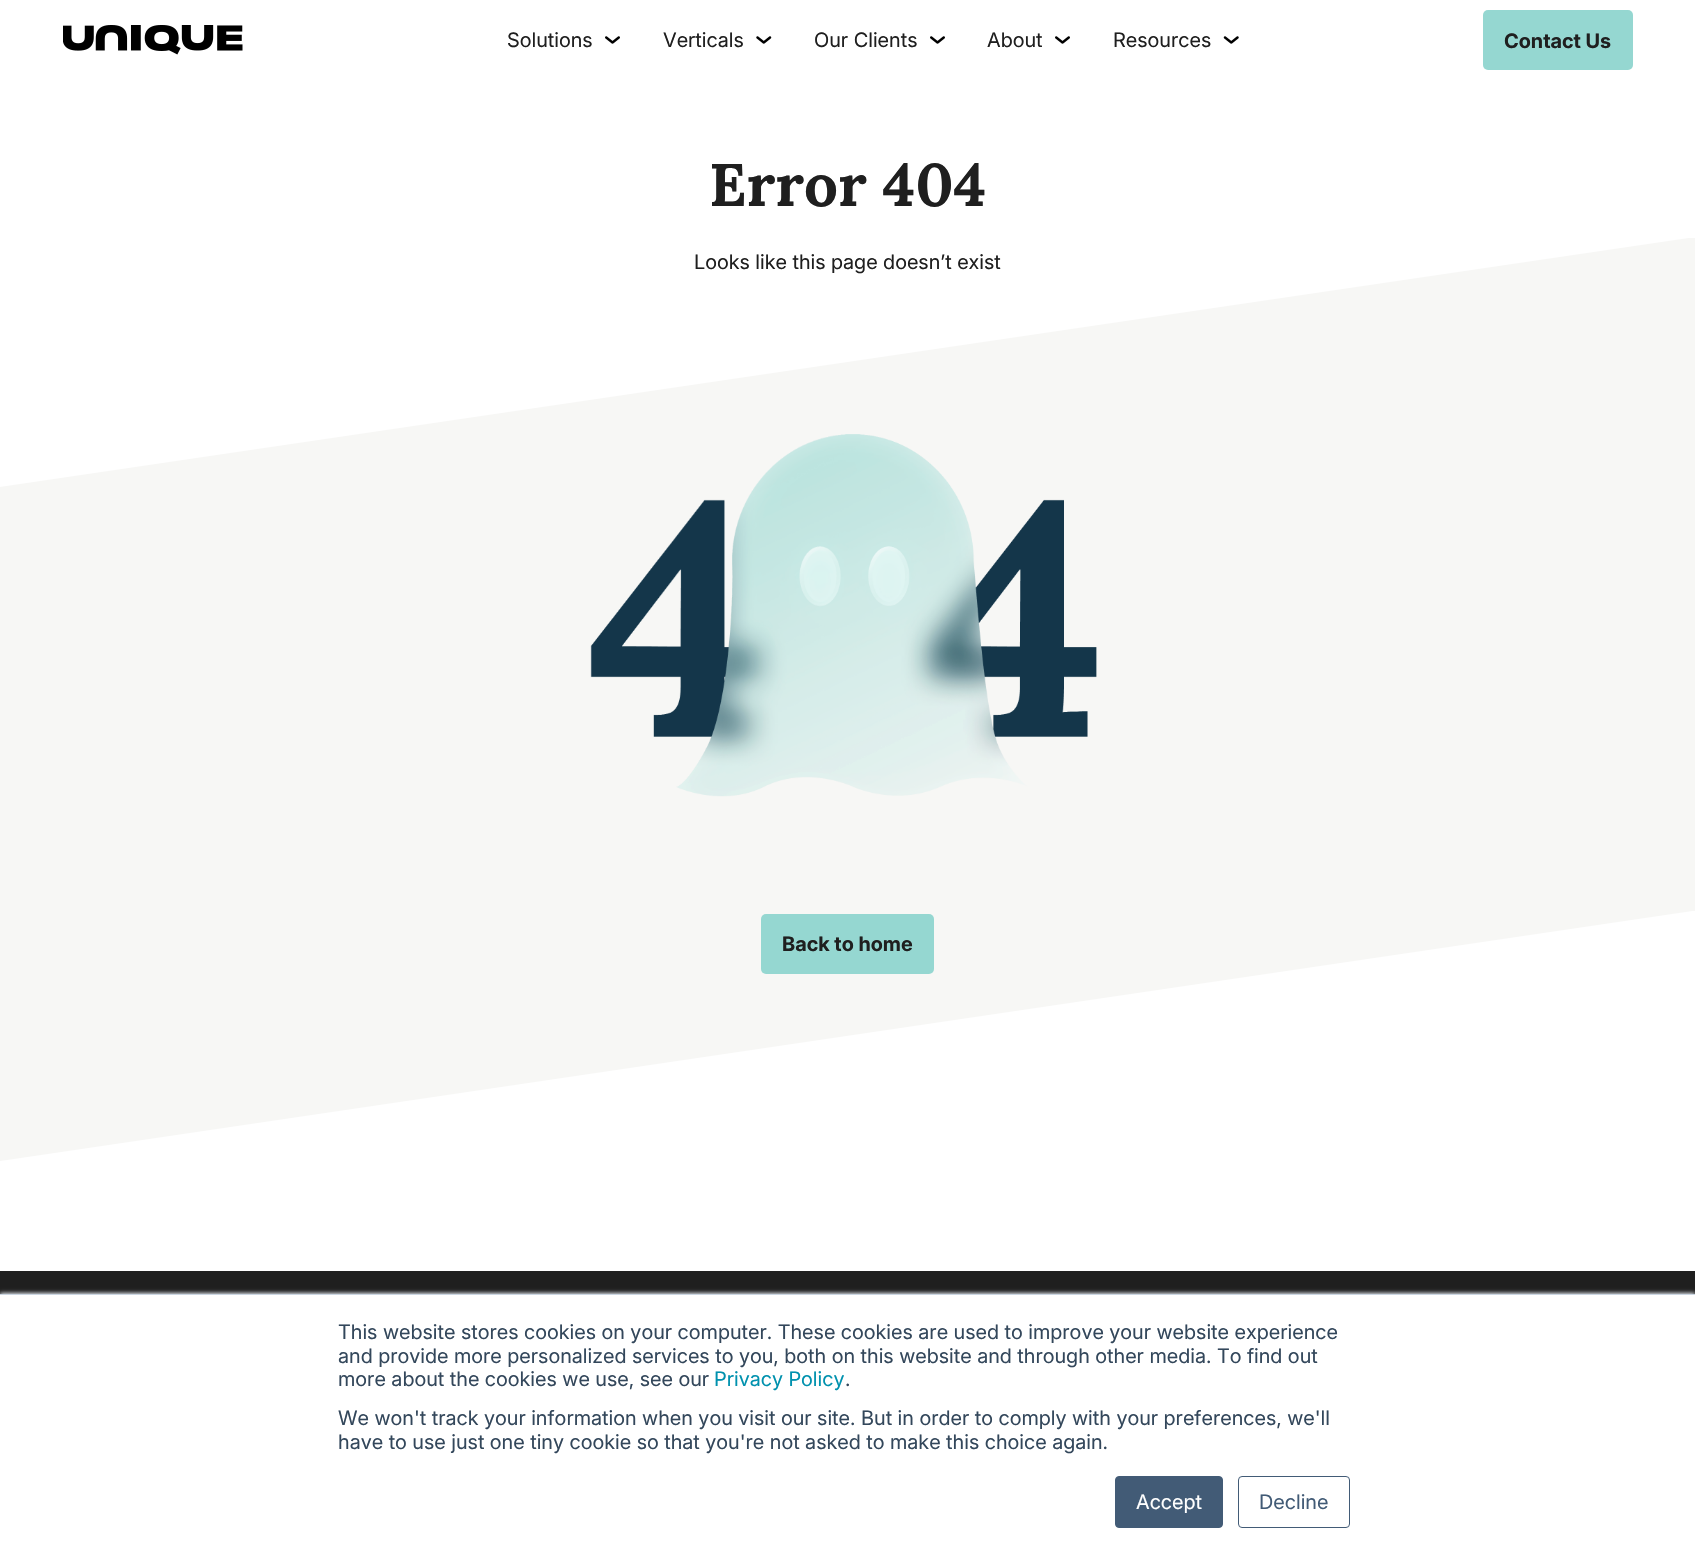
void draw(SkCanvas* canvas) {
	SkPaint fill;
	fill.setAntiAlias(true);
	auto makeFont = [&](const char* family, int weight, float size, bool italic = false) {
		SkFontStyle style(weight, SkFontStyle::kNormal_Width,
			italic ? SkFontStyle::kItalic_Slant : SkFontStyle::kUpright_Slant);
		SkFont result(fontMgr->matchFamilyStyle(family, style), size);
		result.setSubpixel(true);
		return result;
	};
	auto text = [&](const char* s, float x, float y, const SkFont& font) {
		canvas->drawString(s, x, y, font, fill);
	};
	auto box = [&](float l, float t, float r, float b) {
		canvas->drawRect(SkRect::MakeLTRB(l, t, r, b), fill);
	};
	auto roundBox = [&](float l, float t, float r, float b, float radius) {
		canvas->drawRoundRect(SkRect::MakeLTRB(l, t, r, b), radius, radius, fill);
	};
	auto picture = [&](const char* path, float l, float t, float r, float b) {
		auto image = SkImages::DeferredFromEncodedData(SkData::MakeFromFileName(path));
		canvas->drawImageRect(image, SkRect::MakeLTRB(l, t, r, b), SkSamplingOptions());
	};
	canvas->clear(0xFFFFFFFF);
	picture("image0.png", 63, 25, 243, 55);
	picture("image1.png", 605, 36, 620, 44);
	picture("image2.png", 756, 36, 772, 44);
	picture("image1.png", 930, 36, 945, 44);
	picture("image1.png", 1055, 36, 1070, 44);
	picture("image3.png", 1223, 36, 1239, 44);
	fill.setColor(0xFF95D7D1);
	roundBox(1483, 10, 1633, 70, 5);
	fill.setColor(0xFFF7F7F5);
	box(0, 238, 1695, 1161);
	picture("image4.png", 590, 434, 1097, 797);
	fill.setColor(0xFFFFFFFF);
	canvas->drawPath(SkPathBuilder().moveTo(0, 238).lineTo(1689, 238).lineTo(0, 487).close().detach(), fill);
	fill.setColor(0xFF95D7D1);
	roundBox(761, 914, 934, 974, 5);
	fill.setColor(0xFF1F1F1F);
	box(0, 1271, 1695, 1294);
	fill.setColor(0xFFEAF0F6);
	fill.setMaskFilter(SkMaskFilter::MakeBlur(kNormal_SkBlurStyle, 2));
	canvas->drawRect(SkRect::MakeLTRB(0, 1293, 1695, 1559), fill);
	fill.setMaskFilter(nullptr);
	fill.setColor(0xFFFFFFFF);
	box(0, 1295, 1695, 1559);
	fill.setColor(0xFFCBD6E2);
	box(0, 1294, 1695, 1295);
	fill.setColor(0xFF425B76);
	canvas->drawRoundRect(SkRect::MakeLTRB(1115.5f, 1476.5f, 1222.5f, 1527.5f), 3.5f, 3.5f, fill);
	fill.setStyle(SkPaint::kStroke_Style);
	fill.setStrokeWidth(1);
	canvas->drawRoundRect(SkRect::MakeLTRB(1115.5f, 1476.5f, 1222.5f, 1527.5f), 3.5f, 3.5f, fill);
	canvas->drawRoundRect(SkRect::MakeLTRB(1238.5f, 1476.5f, 1349.5f, 1527.5f), 3.5f, 3.5f, fill);
	auto font1 = makeFont("Inter", 400, 20);
	fill.setStyle(SkPaint::kFill_Style);
	fill.setColor(0xFF1F1F1F);
	text("Solutions", 507, 47, font1);
	text("Verticals", 663, 47, font1);
	text("Our Clients", 814, 47, font1);
	text("About", 987, 47, font1);
	text("Resources", 1113, 47, font1);
	auto font2 = makeFont("Inter", 700, 20);
	text("Contact Us", 1504, 48, font2);
	auto font3 = makeFont("Lora", 700, 60);
	text("Error 404", 709, 206, font3);
	text("Looks like this page doesn’t exist", 694, 269, font1);
	text("Back to home", 782, 951, font2);
	fill.setColor(0xFFFFFFFF);
	canvas->drawPath(SkPathBuilder().moveTo(0, 1161).lineTo(1695, 1161).lineTo(1695, 911).lineTo(1692, 911).close().detach(), fill);
	fill.setColor(0xFF33475B);
	text("This website stores cookies on your computer. These cookies are used to improve your website experience", 338, 1339, font1);
	text("and provide more personalized services to you, both on this website and through other media. To find out", 338, 1363, font1);
	text("more about the cookies we use, see our", 338, 1386, font1);
	fill.setColor(0xFF0091AE);
	text("Privacy Policy", 714, 1386, font1);
	fill.setColor(0xFF33475B);
	text(".", 845, 1386, font1);
	text("We won't track your information when you visit our site. But in order to comply with your preferences, we'll", 338, 1425, font1);
	text("have to use just one tiny cookie so that you're not asked to make this choice again.", 338, 1449, font1);
	fill.setColor(0xFFFFFFFF);
	text("Accept", 1136, 1509, font1);
	fill.setColor(0xFF425B76);
	text("Decline", 1259, 1509, font1);
}
